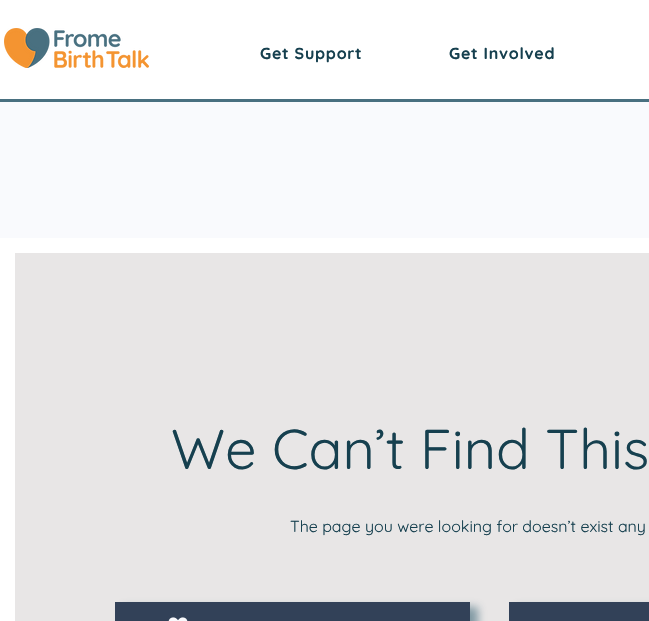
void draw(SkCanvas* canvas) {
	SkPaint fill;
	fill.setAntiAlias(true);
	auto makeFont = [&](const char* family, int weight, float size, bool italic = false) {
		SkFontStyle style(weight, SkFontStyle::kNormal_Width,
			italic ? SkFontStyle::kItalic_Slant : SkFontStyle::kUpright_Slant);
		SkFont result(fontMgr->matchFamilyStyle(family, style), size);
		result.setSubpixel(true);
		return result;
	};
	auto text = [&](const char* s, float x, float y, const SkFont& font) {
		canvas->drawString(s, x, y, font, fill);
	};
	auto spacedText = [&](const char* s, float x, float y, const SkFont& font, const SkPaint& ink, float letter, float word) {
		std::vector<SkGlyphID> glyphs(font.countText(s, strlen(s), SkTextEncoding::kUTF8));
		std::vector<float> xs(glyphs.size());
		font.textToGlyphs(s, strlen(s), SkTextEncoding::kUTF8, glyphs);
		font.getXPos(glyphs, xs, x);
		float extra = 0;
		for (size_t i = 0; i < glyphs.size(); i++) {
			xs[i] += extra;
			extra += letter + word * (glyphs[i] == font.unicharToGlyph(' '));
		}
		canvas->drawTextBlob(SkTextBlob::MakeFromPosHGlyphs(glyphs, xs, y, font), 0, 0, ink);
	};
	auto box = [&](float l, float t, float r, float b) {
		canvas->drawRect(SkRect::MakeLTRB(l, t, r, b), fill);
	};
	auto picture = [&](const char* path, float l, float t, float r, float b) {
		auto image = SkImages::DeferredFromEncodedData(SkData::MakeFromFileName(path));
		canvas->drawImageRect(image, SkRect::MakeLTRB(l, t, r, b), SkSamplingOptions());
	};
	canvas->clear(0xFFF9FAFD);
	fill.setColor(0xFF497080);
	box(0, 99, 649, 102);
	fill.setColor(0xFFFFFFFF);
	box(0, 0, 649, 99);
	picture("image0.png", 4, 28, 149, 68);
	fill.setColor(0xFFE8E6E6);
	canvas->drawRect(SkRect::MakeLTRB(7.5f, 245.5f, 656.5f, 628.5f), fill);
	fill.setStyle(SkPaint::kStroke_Style);
	fill.setStrokeWidth(15);
	fill.setColor(0xFFFFFFFF);
	canvas->drawRect(SkRect::MakeLTRB(7.5f, 245.5f, 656.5f, 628.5f), fill);
	fill.setStyle(SkPaint::kFill_Style);
	fill.setColor(0xA6497080);
	fill.setMaskFilter(SkMaskFilter::MakeBlur(kNormal_SkBlurStyle, 4));
	canvas->drawRect(SkRect::MakeLTRB(123, 607, 478, 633), fill);
	fill.setMaskFilter(nullptr);
	fill.setColor(0xFF324158);
	box(115, 602, 470, 621);
	picture("image1.png", 168, 617, 188, 621);
	fill.setColor(0xA6497080);
	fill.setMaskFilter(SkMaskFilter::MakeBlur(kNormal_SkBlurStyle, 4));
	canvas->drawRect(SkRect::MakeLTRB(517, 607, 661, 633), fill);
	fill.setMaskFilter(nullptr);
	fill.setColor(0xFF324158);
	box(509, 602, 649, 621);
	auto font1 = makeFont("Quicksand", 700, 16);
	fill.setColor(0xFF16404F);
	spacedText("Get Support", 260, 59, font1, fill, 0.75f, 0);
	spacedText("Get Involved", 449, 59, font1, fill, 0.75f, 0);
	auto font2 = makeFont("Quicksand", 400, 56);
	text("We Can’t Find This", 171, 469, font2);
	auto font3 = makeFont("Quicksand", 400, 16);
	text("The page you were looking for doesn’t exist any", 290, 532, font3);
}
